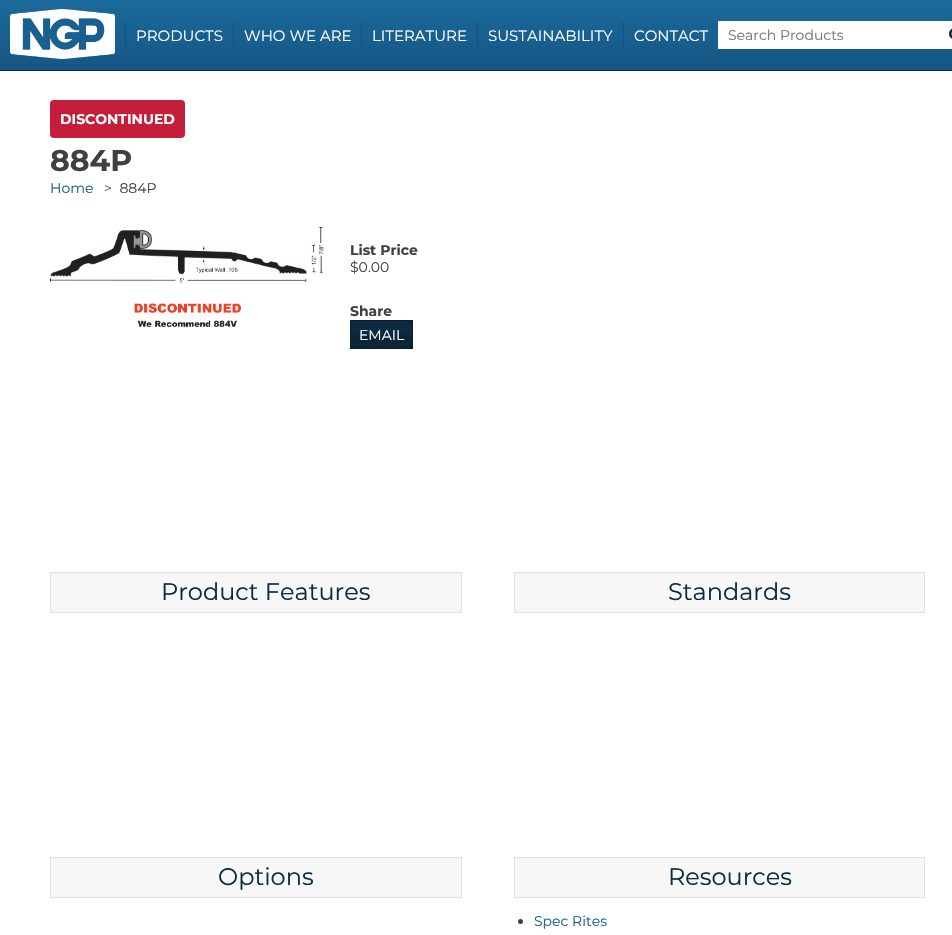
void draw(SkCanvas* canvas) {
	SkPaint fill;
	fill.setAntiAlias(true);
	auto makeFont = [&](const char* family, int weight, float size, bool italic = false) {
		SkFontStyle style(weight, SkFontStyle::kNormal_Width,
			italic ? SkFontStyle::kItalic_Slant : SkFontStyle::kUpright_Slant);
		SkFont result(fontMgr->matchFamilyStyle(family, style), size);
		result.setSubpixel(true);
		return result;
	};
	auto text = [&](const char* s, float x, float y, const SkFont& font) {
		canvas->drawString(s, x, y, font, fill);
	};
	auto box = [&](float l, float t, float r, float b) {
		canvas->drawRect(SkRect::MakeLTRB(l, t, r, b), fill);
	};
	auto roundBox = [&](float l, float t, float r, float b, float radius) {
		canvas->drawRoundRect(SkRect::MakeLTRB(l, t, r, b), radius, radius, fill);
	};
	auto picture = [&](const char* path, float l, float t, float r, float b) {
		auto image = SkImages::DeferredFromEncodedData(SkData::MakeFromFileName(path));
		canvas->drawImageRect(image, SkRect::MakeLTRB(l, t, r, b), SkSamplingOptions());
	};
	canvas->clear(0xFFFFFFFF);
	{
		const SkColor colors[] = {0xFF1A6A9B, 0xFF165685};
		const float stops[] = {0, 1};
		const SkPoint ends[] = {{476, 0}, {476, 70}};
		fill.setShader(SkGradientShader::MakeLinear(ends, colors, stops, 2, SkTileMode::kClamp));
		fill.setAlpha(255);
	}
	box(0, 0, 952, 70);
	fill.setShader(nullptr);
	fill.setColor(0xFF0B2B40);
	box(0, 70, 952, 71);
	picture("image0.png", 10, 9, 115, 59);
	fill.setColor(0xFF15527B);
	box(125, 22, 126, 51);
	box(233, 22, 234, 51);
	box(361, 22, 362, 51);
	box(477, 22, 478, 51);
	box(623, 22, 624, 51);
	fill.setColor(0xFFFFFFFF);
	box(718, 21, 952, 49);
	picture("image1.png", 949, 28, 952, 39);
	fill.setColor(0xFFC41E3A);
	roundBox(50, 100, 185, 138, 4);
	picture("image2.png", 50, 227, 324, 327);
	fill.setColor(0xFF0B2B40);
	box(351, 321, 412, 335);
	fill.setColor(0xFF092536);
	box(351, 335, 412, 348);
	fill.setStyle(SkPaint::kStroke_Style);
	fill.setStrokeWidth(1);
	fill.setColor(0xFF0B1D28);
	canvas->drawRect(SkRect::MakeLTRB(350.5f, 320.5f, 412.5f, 348.5f), fill);
	fill.setStyle(SkPaint::kFill_Style);
	fill.setColor(0xFFF7F7F7);
	canvas->drawRect(SkRect::MakeLTRB(50.5f, 572.5f, 461.5f, 612.5f), fill);
	fill.setStyle(SkPaint::kStroke_Style);
	fill.setColor(0xFFE0E0E0);
	canvas->drawRect(SkRect::MakeLTRB(50.5f, 572.5f, 461.5f, 612.5f), fill);
	fill.setStyle(SkPaint::kFill_Style);
	fill.setColor(0xFFF7F7F7);
	canvas->drawRect(SkRect::MakeLTRB(514.5f, 572.5f, 924.5f, 612.5f), fill);
	fill.setStyle(SkPaint::kStroke_Style);
	fill.setColor(0xFFE0E0E0);
	canvas->drawRect(SkRect::MakeLTRB(514.5f, 572.5f, 924.5f, 612.5f), fill);
	fill.setStyle(SkPaint::kFill_Style);
	fill.setColor(0xFFF7F7F7);
	canvas->drawRect(SkRect::MakeLTRB(50.5f, 857.5f, 461.5f, 897.5f), fill);
	fill.setStyle(SkPaint::kStroke_Style);
	fill.setColor(0xFFE0E0E0);
	canvas->drawRect(SkRect::MakeLTRB(50.5f, 857.5f, 461.5f, 897.5f), fill);
	fill.setStyle(SkPaint::kFill_Style);
	fill.setColor(0xFFF7F7F7);
	canvas->drawRect(SkRect::MakeLTRB(514.5f, 857.5f, 924.5f, 897.5f), fill);
	fill.setStyle(SkPaint::kStroke_Style);
	fill.setColor(0xFFE0E0E0);
	canvas->drawRect(SkRect::MakeLTRB(514.5f, 857.5f, 924.5f, 897.5f), fill);
	fill.setStyle(SkPaint::kFill_Style);
	fill.setColor(0xFF404040);
	canvas->drawCircle(520.5f, 921.5f, 2.5f, fill);
	auto font1 = makeFont("Montserrat", 400, 15);
	fill.setColor(0xFFFFFFFF);
	text("PRODUCTS", 136, 41, font1);
	text("WHO WE ARE", 244, 41, font1);
	text("LITERATURE", 372, 41, font1);
	text("SUSTAINABILITY", 488, 41, font1);
	text("CONTACT", 634, 41, font1);
	auto font2 = makeFont("Montserrat", 400, 14);
	fill.setColor(0xFF757575);
	text("Search Products", 728, 40, font2);
	auto font3 = makeFont("Montserrat", 700, 14);
	fill.setColor(0xFFFFFFFF);
	text("DISCONTINUED", 60, 124, font3);
	auto font4 = makeFont("Montserrat", 700, 30);
	fill.setColor(0xFF404040);
	text("884P", 50, 171, font4);
	fill.setColor(0xFF186090);
	text("Home", 50, 193, font2);
	fill.setColor(0xFF404040);
	text(">  884P", 104, 193, font2);
	text("List Price", 350, 255, font3);
	text("$0.00", 350, 272, font2);
	text("Share", 350, 316, font3);
	fill.setColor(0xFFFFFFFF);
	text("EMAIL", 359, 340, font2);
	auto font5 = makeFont("Montserrat", 400, 24);
	fill.setColor(0xFF0B2B40);
	text("Product Features", 161, 600, font5);
	text("Standards", 668, 600, font5);
	text("Options", 218, 885, font5);
	text("Resources", 668, 885, font5);
	fill.setColor(0xFF186090);
	text("Spec Rites", 534, 926, font2);
}
